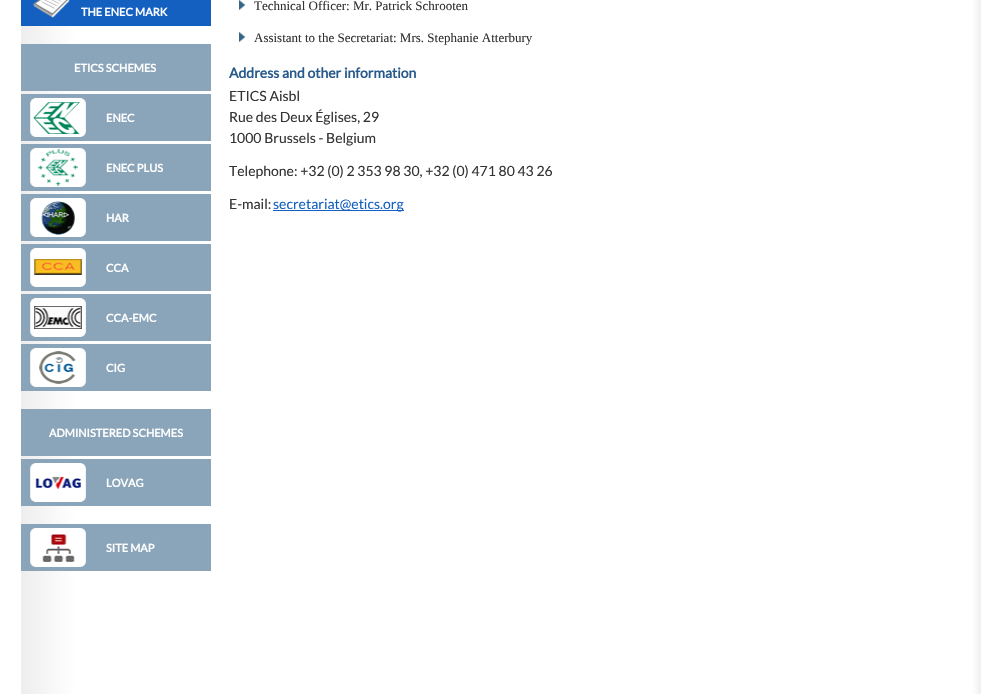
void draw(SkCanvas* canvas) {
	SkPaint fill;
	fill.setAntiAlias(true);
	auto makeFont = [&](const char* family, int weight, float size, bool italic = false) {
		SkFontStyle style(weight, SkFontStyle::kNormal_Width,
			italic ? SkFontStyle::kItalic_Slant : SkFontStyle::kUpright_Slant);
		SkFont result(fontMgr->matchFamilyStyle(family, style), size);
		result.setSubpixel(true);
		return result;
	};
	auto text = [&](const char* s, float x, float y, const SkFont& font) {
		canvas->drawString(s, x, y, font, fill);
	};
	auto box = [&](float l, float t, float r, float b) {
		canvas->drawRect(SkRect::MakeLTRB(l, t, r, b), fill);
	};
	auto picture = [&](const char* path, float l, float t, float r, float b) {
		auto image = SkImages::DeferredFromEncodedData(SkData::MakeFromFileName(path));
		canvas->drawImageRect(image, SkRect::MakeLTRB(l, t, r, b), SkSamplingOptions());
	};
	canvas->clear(0xFFFFFFFF);
	picture("image0.png", 21, 0, 981, 694);
	fill.setColor(0xFF1460C0);
	box(21, 0, 211, 26);
	picture("image1.png", 33, 0, 70, 18);
	fill.setColor(0xFF8AA5BA);
	box(21, 44, 211, 91);
	box(21, 94, 211, 141);
	picture("image2.png", 30, 98, 86, 137);
	box(21, 144, 211, 191);
	picture("image3.png", 30, 148, 86, 187);
	box(21, 194, 211, 241);
	picture("image4.png", 30, 198, 86, 237);
	box(21, 244, 211, 291);
	picture("image5.png", 30, 248, 86, 287);
	box(21, 294, 211, 341);
	picture("image6.png", 30, 298, 86, 337);
	box(21, 344, 211, 391);
	picture("image7.png", 30, 348, 86, 387);
	box(21, 409, 211, 456);
	box(21, 459, 211, 506);
	picture("image8.png", 30, 463, 86, 502);
	box(21, 524, 211, 571);
	picture("image9.png", 30, 528, 86, 567);
	picture("image10.png", 239, 0, 245, 10);
	picture("image10.png", 239, 32, 245, 42);
	fill.setColor(0xFF1460C0);
	box(273, 210, 404, 211);
	auto font1 = makeFont("Lato", 700, 11);
	fill.setColor(0xFFFFFFFF);
	text("THE ENEC MARK", 81, 16, font1);
	text("ETICS SCHEMES", 74, 72, font1);
	text("ENEC", 106, 122, font1);
	text("ENEC PLUS", 106, 172, font1);
	text("HAR", 106, 222, font1);
	text("CCA", 106, 272, font1);
	text("CCA-EMC", 106, 322, font1);
	text("CIG", 106, 372, font1);
	text("ADMINISTERED SCHEMES", 49, 437, font1);
	text("LOVAG", 106, 487, font1);
	text("SITE MAP", 106, 552, font1);
	auto font2 = makeFont("Liberation Serif", 400, 13);
	fill.setColor(0xFF333333);
	text("Technical Officer: Mr. Patrick Schrooten", 254, 10, font2);
	text("Assistant to the Secretariat: Mrs. Stephanie Atterbury", 254, 42, font2);
	auto font3 = makeFont("Lato", 700, 14);
	fill.setColor(0xFF26598C);
	text("Address and other information", 229, 78, font3);
	auto font4 = makeFont("Lato", 400, 14);
	fill.setColor(0xFF333333);
	text("ETICS Aisbl", 229, 101, font4);
	text("Rue des Deux Églises, 29", 229, 122, font4);
	text("1000 Brussels - Belgium", 229, 143, font4);
	text("Telephone: +32 (0) 2 353 98 30, +32 (0) 471 80 43 26", 229, 176, font4);
	text("E-mail:", 229, 209, font4);
	fill.setColor(0xFF1460C0);
	text("secretariat@etics.org", 273, 209, font4);
}
